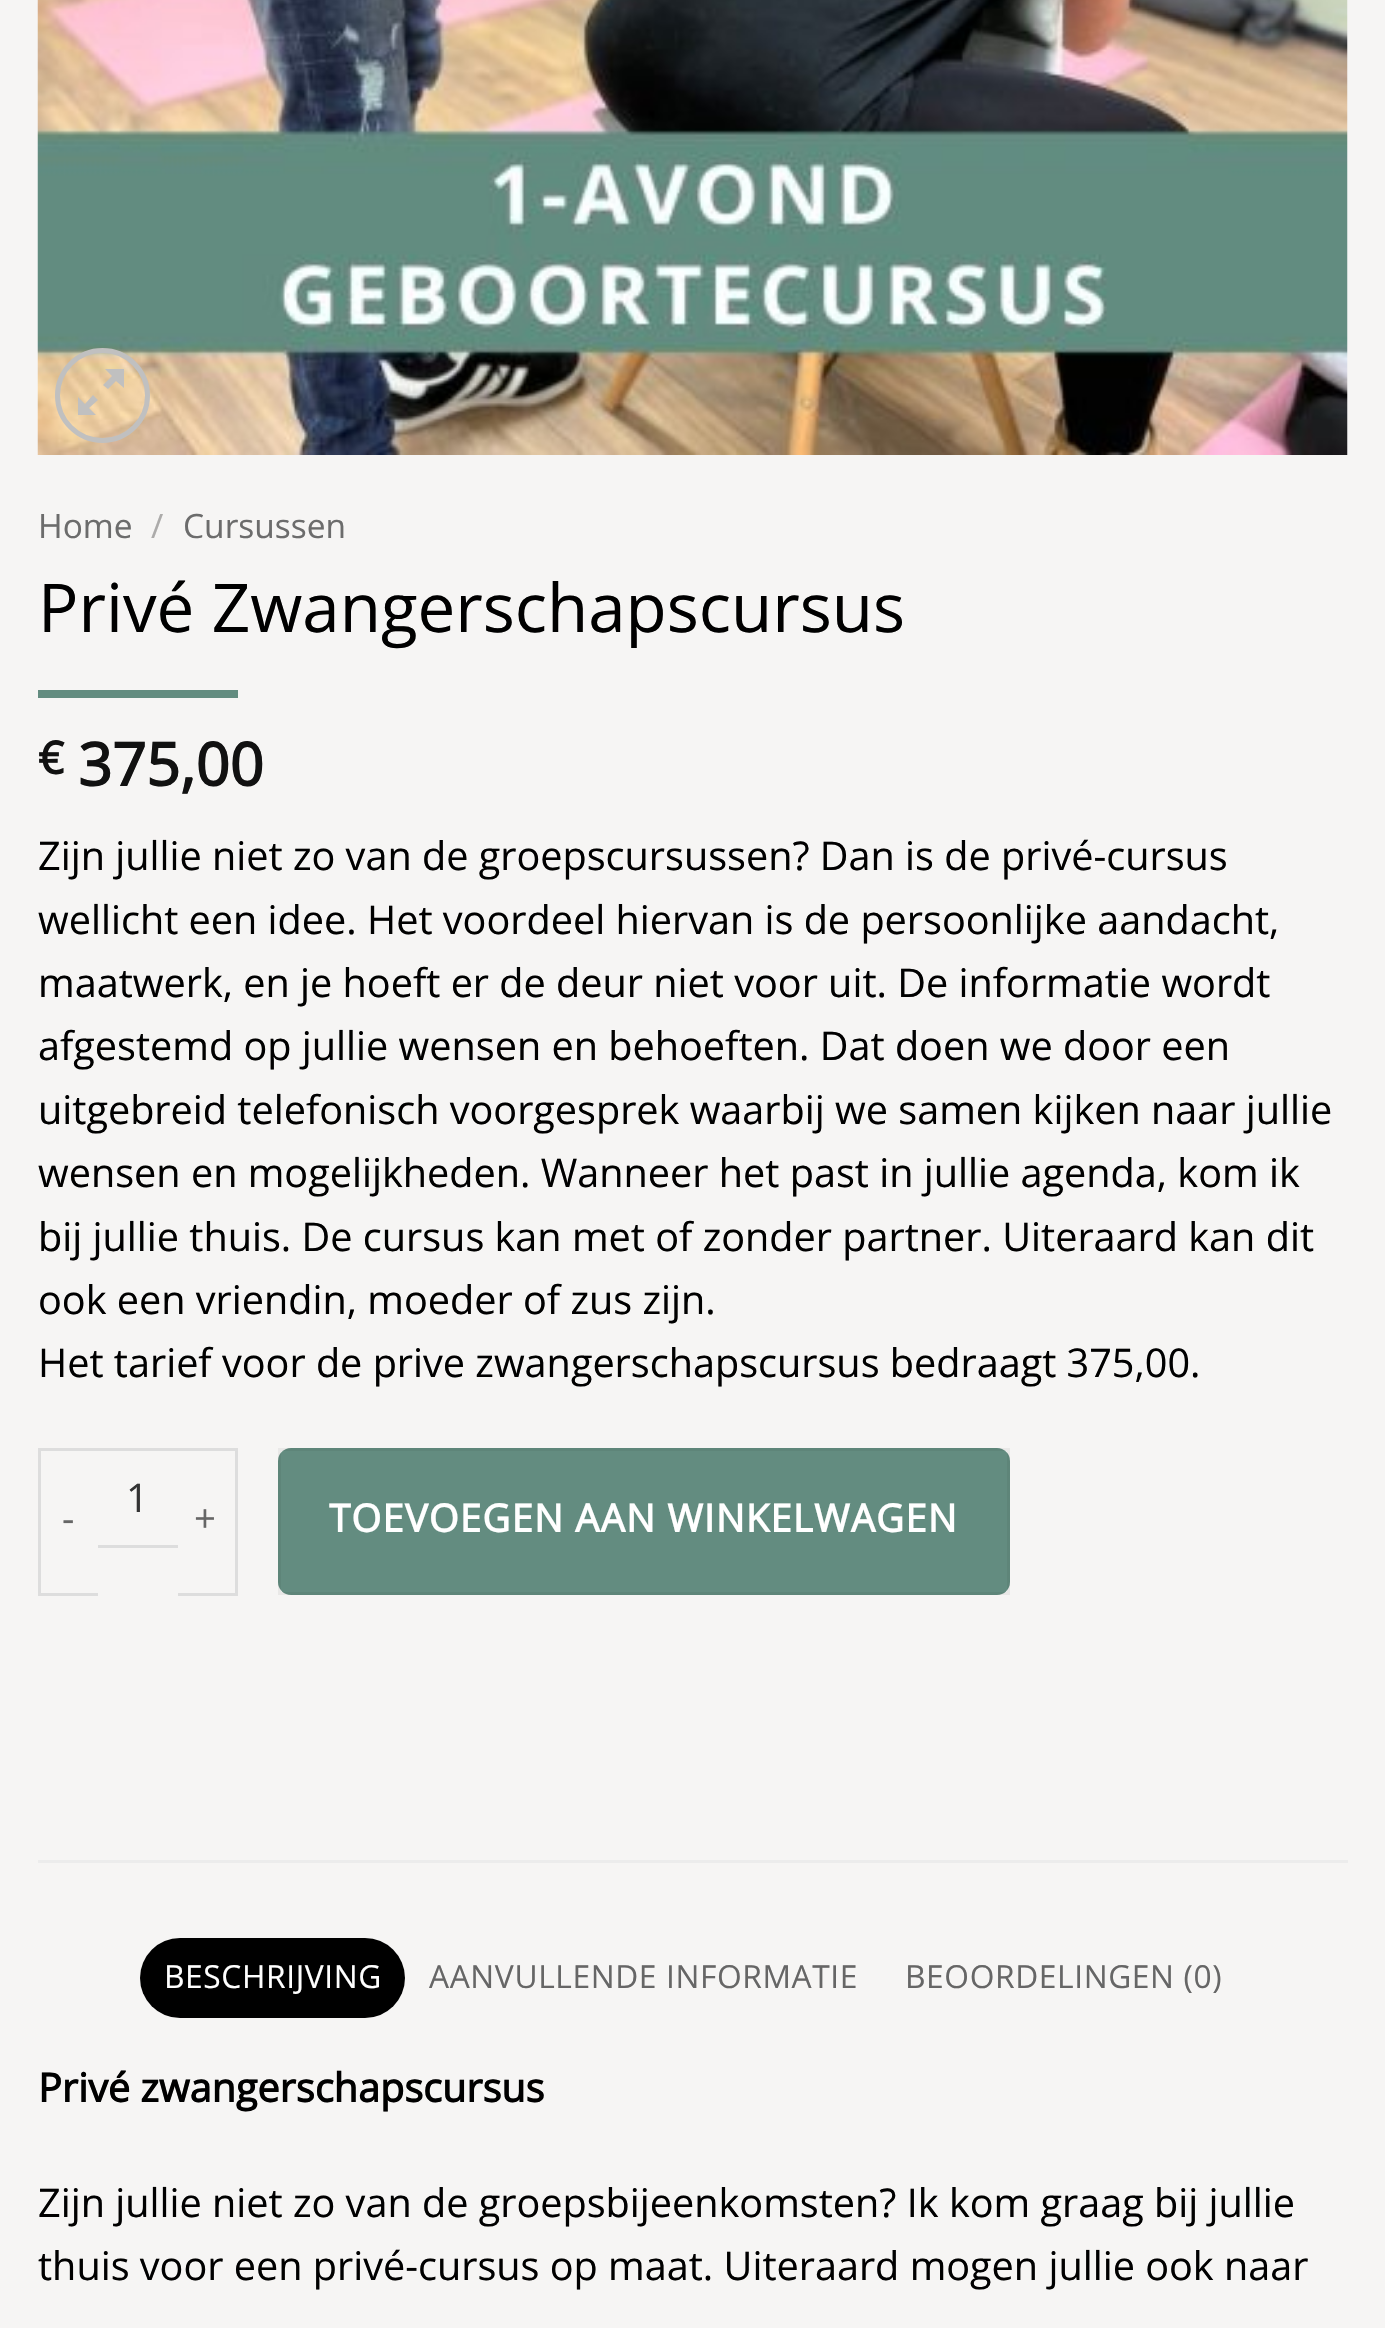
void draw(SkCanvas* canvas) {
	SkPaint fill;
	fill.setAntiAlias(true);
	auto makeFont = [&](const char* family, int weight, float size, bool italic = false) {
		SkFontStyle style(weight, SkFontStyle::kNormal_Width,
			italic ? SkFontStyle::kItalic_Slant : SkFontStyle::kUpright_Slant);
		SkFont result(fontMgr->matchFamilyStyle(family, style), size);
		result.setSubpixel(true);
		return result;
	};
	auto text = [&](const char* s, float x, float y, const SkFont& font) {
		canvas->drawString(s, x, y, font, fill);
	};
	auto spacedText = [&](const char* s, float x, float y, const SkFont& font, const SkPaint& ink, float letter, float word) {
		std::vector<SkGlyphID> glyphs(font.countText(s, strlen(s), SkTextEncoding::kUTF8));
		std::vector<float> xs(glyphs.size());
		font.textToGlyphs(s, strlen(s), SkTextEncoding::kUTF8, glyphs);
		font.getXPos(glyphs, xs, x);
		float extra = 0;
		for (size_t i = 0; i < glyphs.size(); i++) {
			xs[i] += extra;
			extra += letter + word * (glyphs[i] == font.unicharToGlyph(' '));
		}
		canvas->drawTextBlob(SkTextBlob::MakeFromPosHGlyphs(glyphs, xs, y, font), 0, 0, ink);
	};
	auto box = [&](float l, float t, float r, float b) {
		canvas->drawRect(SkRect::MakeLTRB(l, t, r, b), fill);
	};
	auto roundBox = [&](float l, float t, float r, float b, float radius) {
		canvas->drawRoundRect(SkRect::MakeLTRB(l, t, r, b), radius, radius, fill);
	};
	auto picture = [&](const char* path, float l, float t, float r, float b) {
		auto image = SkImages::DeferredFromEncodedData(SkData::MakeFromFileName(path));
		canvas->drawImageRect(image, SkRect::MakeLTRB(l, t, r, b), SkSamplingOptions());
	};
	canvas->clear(0xFFF6F5F4);
	picture("image0.png", 37, 0, 1348, 455);
	fill.setStyle(SkPaint::kStroke_Style);
	fill.setStrokeWidth(5);
	fill.setColor(0xFFC0C0C0);
	canvas->drawCircle(102.5f, 395.5f, 45, fill);
	fill.setStyle(SkPaint::kFill_Style);
	canvas->drawPath(SkPathBuilder().moveTo(124, 369).lineTo(124, 388).lineTo(116, 381).lineTo(108, 389).lineTo(103, 385).lineTo(112, 376).lineTo(105, 369).close().moveTo(98, 400).lineTo(89, 408).lineTo(96, 415).lineTo(78, 415).lineTo(78, 397).lineTo(85, 404).lineTo(93, 395).close().detach(), fill);
	fill.setColor(0xFF638C80);
	box(38, 690, 238, 698);
	fill.setColor(0xFFDDDDDD);
	box(38, 1448, 238, 1451);
	box(98, 1545, 178, 1548);
	box(38, 1593, 98, 1596);
	box(38, 1448, 41, 1595);
	box(235, 1448, 238, 1595);
	box(178, 1593, 238, 1596);
	fill.setColor(0xFF638C80);
	roundBox(278, 1448, 1010, 1595, 13);
	fill.setStyle(SkPaint::kStroke_Style);
	fill.setStrokeWidth(3);
	fill.setColor(0x0D000000);
	canvas->drawRect(SkRect::MakeLTRB(279.5f, 1449.5f, 1008.5f, 1593.5f), fill);
	fill.setStyle(SkPaint::kFill_Style);
	fill.setColor(0xFFECECEC);
	box(38, 1860, 1348, 1863);
	fill.setColor(0xFF000000);
	roundBox(140, 1938, 405, 2018, 40);
	auto font1 = makeFont("Open Sans", 400, 33.5f);
	fill.setColor(0xFF6C6C6C);
	text("Home", 38, 538, font1);
	fill.setColor(0xFFACABAA);
	text("/", 151, 538, font1);
	fill.setColor(0xFF6C6C6C);
	text("Cursussen", 183, 538, font1);
	auto font2 = makeFont("Open Sans", 400, 67.25f);
	fill.setColor(0xFF000000);
	text("Privé Zwangerschapscursus", 38, 632, font2);
	auto font3 = makeFont("Open Sans", 700, 45);
	fill.setColor(0xFF111111);
	text("€", 38, 774, font3);
	auto font4 = makeFont("Open Sans", 700, 59.5f);
	text("375,00", 78, 786, font4);
	auto font5 = makeFont("Open Sans", 400, 39.6f);
	fill.setColor(0xFF000000);
	text("Zijn jullie niet zo van de groepscursussen? Dan is de privé-cursus", 38, 870, font5);
	text("wellicht een idee. Het voordeel hiervan is de persoonlijke aandacht,", 38, 934, font5);
	text("maatwerk, en je hoeft er de deur niet voor uit. De informatie wordt", 38, 997, font5);
	text("afgestemd op jullie wensen en behoeften. Dat doen we door een", 38, 1060, font5);
	text("uitgebreid telefonisch voorgesprek waarbij we samen kijken naar jullie", 38, 1124, font5);
	text("wensen en mogelijkheden. Wanneer het past in jullie agenda, kom ik", 38, 1187, font5);
	text("bij jullie thuis. De cursus kan met of zonder partner. Uiteraard kan dit", 38, 1251, font5);
	text("ook een vriendin, moeder of zus zijn.", 38, 1314, font5);
	text("Het tarief voor de prive zwangerschapscursus bedraagt 375,00.", 38, 1377, font5);
	fill.setColor(0xFF333333);
	text("1", 126, 1512, font5);
	auto font6 = makeFont("Open Sans", 400, 38.4f);
	fill.setColor(0xFF666666);
	spacedText("-", 62, 1532, font6, fill, 1.15f, 0);
	spacedText("+", 194, 1532, font6, fill, 1.15f, 0);
	auto font7 = makeFont("Open Sans", 700, 38.4f);
	fill.setColor(0xFFFFFFFF);
	spacedText("TOEVOEGEN AAN WINKELWAGEN", 329, 1532, font7, fill, 1.15f, 0);
	auto font8 = makeFont("Open Sans", 400, 31.75f);
	spacedText("BESCHRIJVING", 164, 1988, font8, fill, 0.6f, 0);
	fill.setColor(0xFF666666);
	spacedText("AANVULLENDE INFORMATIE", 429, 1988, font8, fill, 0.6f, 0);
	spacedText("BEOORDELINGEN (0)", 905, 1988, font8, fill, 0.6f, 0);
	auto font9 = makeFont("Open Sans", 700, 39.6f);
	fill.setColor(0xFF000000);
	text("Privé zwangerschapscursus", 38, 2102, font9);
	text("Zijn jullie niet zo van de groepsbijeenkomsten? Ik kom graag bij jullie", 38, 2217, font5);
	text("thuis voor een privé-cursus op maat. Uiteraard mogen jullie ook naar", 38, 2280, font5);
}
